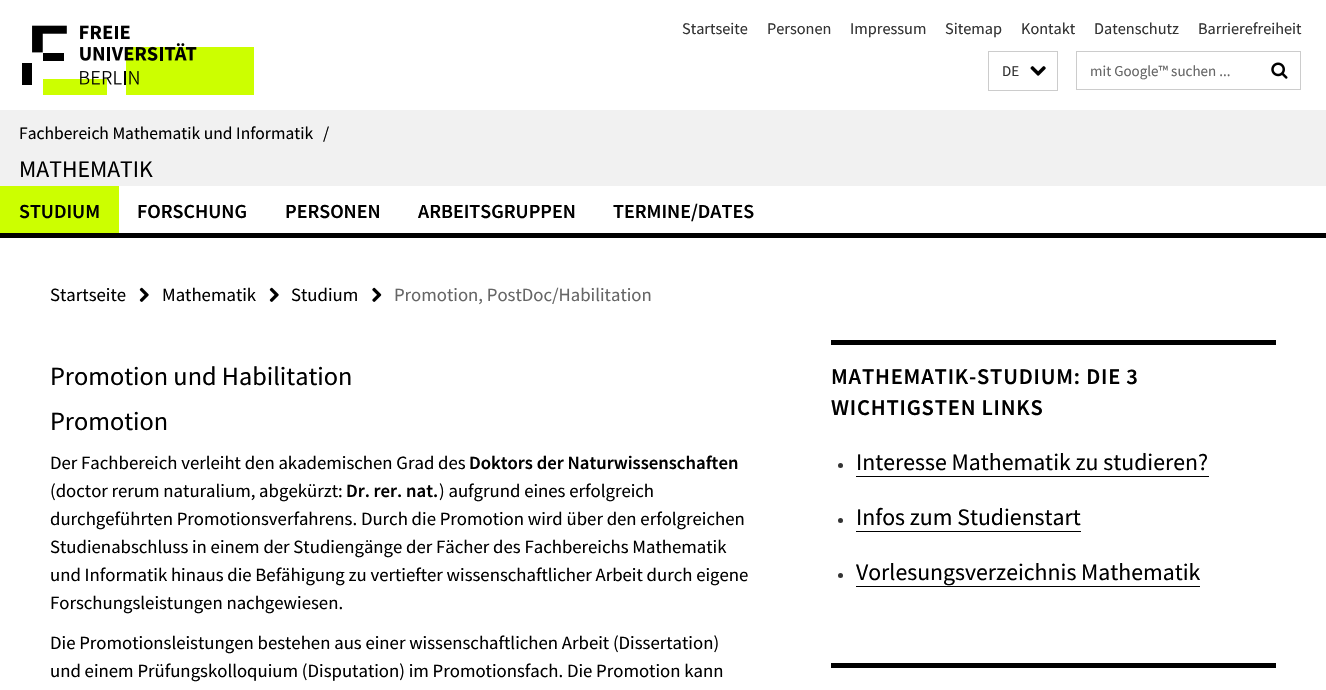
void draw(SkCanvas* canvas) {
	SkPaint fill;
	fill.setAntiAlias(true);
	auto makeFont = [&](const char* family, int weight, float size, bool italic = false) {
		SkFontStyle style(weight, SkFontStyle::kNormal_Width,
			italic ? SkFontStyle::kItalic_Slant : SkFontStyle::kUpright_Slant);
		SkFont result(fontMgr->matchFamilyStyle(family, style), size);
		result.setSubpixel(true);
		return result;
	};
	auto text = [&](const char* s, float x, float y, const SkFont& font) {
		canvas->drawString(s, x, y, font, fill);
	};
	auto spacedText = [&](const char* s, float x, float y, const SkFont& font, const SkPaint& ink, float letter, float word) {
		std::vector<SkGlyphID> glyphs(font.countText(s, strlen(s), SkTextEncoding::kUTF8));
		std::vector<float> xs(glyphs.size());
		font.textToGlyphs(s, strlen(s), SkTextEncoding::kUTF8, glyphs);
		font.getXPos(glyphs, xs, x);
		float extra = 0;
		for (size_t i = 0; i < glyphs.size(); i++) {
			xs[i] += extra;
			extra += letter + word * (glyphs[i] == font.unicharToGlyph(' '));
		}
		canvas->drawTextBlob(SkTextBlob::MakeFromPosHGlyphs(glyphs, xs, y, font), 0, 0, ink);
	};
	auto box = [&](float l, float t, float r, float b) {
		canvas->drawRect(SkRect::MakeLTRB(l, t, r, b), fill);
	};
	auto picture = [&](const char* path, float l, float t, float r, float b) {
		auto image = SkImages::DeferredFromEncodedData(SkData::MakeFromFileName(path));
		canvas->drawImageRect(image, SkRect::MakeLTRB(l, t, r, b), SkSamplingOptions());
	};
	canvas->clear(0xFFFFFFFF);
	picture("image0.png", 22, 25, 254, 95);
	fill.setStyle(SkPaint::kStroke_Style);
	fill.setStrokeWidth(1);
	fill.setColor(0xFFCCCCCC);
	canvas->drawRect(SkRect::MakeLTRB(988.5f, 51.5f, 1057.5f, 90.5f), fill);
	picture("image1.png", 1030, 66, 1046, 76);
	canvas->drawRect(SkRect::MakeLTRB(1076.5f, 51.5f, 1300.5f, 89.5f), fill);
	picture("image2.png", 1271, 62, 1288, 79);
	fill.setStyle(SkPaint::kFill_Style);
	fill.setColor(0xFFF1F1F1);
	box(0, 110, 1326, 186);
	fill.setColor(0xFF000000);
	box(0, 233, 1326, 238);
	fill.setColor(0xFFCCFF00);
	box(0, 186, 119, 233);
	picture("image3.png", 139, 287, 149, 302);
	picture("image3.png", 269, 287, 279, 302);
	picture("image4.png", 372, 287, 382, 302);
	fill.setColor(0xFF000000);
	box(831, 340, 1276, 345);
	fill.setColor(0xFF333333);
	canvas->drawCircle(840.5f, 465.5f, 2.5f, fill);
	fill.setColor(0xFF000000);
	box(856, 476, 1209, 477);
	fill.setColor(0xFF333333);
	canvas->drawCircle(840.5f, 520.5f, 2.5f, fill);
	fill.setColor(0xFF000000);
	box(856, 531, 1081, 532);
	fill.setColor(0xFF333333);
	canvas->drawCircle(840.5f, 575.5f, 2.5f, fill);
	fill.setColor(0xFF000000);
	box(856, 586, 1200, 587);
	box(831, 663, 1276, 668);
	auto font1 = makeFont("Source Sans Pro", 400, 16.25f);
	fill.setColor(0xFF333333);
	text("Startseite", 682, 34, font1);
	text("Personen", 767, 34, font1);
	text("Impressum", 850, 34, font1);
	text("Sitemap", 945, 34, font1);
	text("Kontakt", 1021, 34, font1);
	text("Datenschutz", 1094, 34, font1);
	text("Barrierefreiheit", 1198, 34, font1);
	auto font2 = makeFont("Source Sans Pro", 400, 15);
	text("DE", 1002, 76, font2);
	fill.setColor(0xFF666666);
	text("mit Google™ suchen ...", 1090, 76, font2);
	auto font3 = makeFont("Source Sans Pro", 400, 17.5f);
	fill.setColor(0xFF000000);
	text("Fachbereich Mathematik und Informatik", 19, 139, font3);
	text("/", 323, 139, font3);
	auto font4 = makeFont("Source Sans Pro", 400, 23.75f);
	text("MATHEMATIK", 19, 177, font4);
	auto font5 = makeFont("Source Sans Pro", 600, 20);
	text("STUDIUM", 19, 218, font5);
	text("FORSCHUNG", 137, 218, font5);
	text("PERSONEN", 285, 218, font5);
	text("ARBEITSGRUPPEN", 418, 218, font5);
	text("TERMINE/DATES", 613, 218, font5);
	auto font6 = makeFont("Source Sans Pro", 400, 18.75f);
	text("Startseite", 50, 301, font6);
	text("Mathematik", 162, 301, font6);
	text("Studium", 291, 301, font6);
	fill.setColor(0xFF666666);
	text("Promotion, PostDoc/Habilitation", 394, 301, font6);
	auto font7 = makeFont("Source Sans Pro", 400, 26.25f);
	fill.setColor(0xFF000000);
	text("Promotion und Habilitation", 50, 385, font7);
	text("Promotion", 50, 430, font7);
	text("Der Fachbereich verleiht den akademischen Grad des", 50, 469, font6);
	auto font8 = makeFont("Source Sans Pro", 600, 18.75f);
	text("Doktors der Naturwissenschaften", 469, 469, font8);
	text("(doctor rerum naturalium, abgekürzt:", 50, 497, font6);
	text("Dr. rer. nat.", 346, 497, font8);
	text(") aufgrund eines erfolgreich", 439, 497, font6);
	text("durchgeführten Promotionsverfahrens. Durch die Promotion wird über den erfolgreichen", 50, 525, font6);
	text("Studienabschluss in einem der Studiengänge der Fächer des Fachbereichs Mathematik", 50, 553, font6);
	text("und Informatik hinaus die Befähigung zu vertiefter wissenschaftlicher Arbeit durch eigene", 50, 581, font6);
	text("Forschungsleistungen nachgewiesen.", 50, 609, font6);
	text("Die Promotionsleistungen bestehen aus einer wissenschaftlichen Arbeit (Dissertation)", 50, 649, font6);
	text("und einem Prüfungskolloquium (Disputation) im Promotionsfach. Die Promotion kann", 50, 677, font6);
	auto font9 = makeFont("Source Sans Pro", 600, 22.5f);
	spacedText("MATHEMATIK-STUDIUM: DIE 3", 831, 384, font9, fill, 0.8f, 0);
	spacedText("WICHTIGSTEN LINKS", 831, 415, font9, fill, 0.8f, 0);
	text("Interesse Mathematik zu studieren?", 856, 470, font4);
	text("Infos zum Studienstart", 856, 525, font4);
	text("Vorlesungsverzeichnis Mathematik", 856, 580, font4);
}
